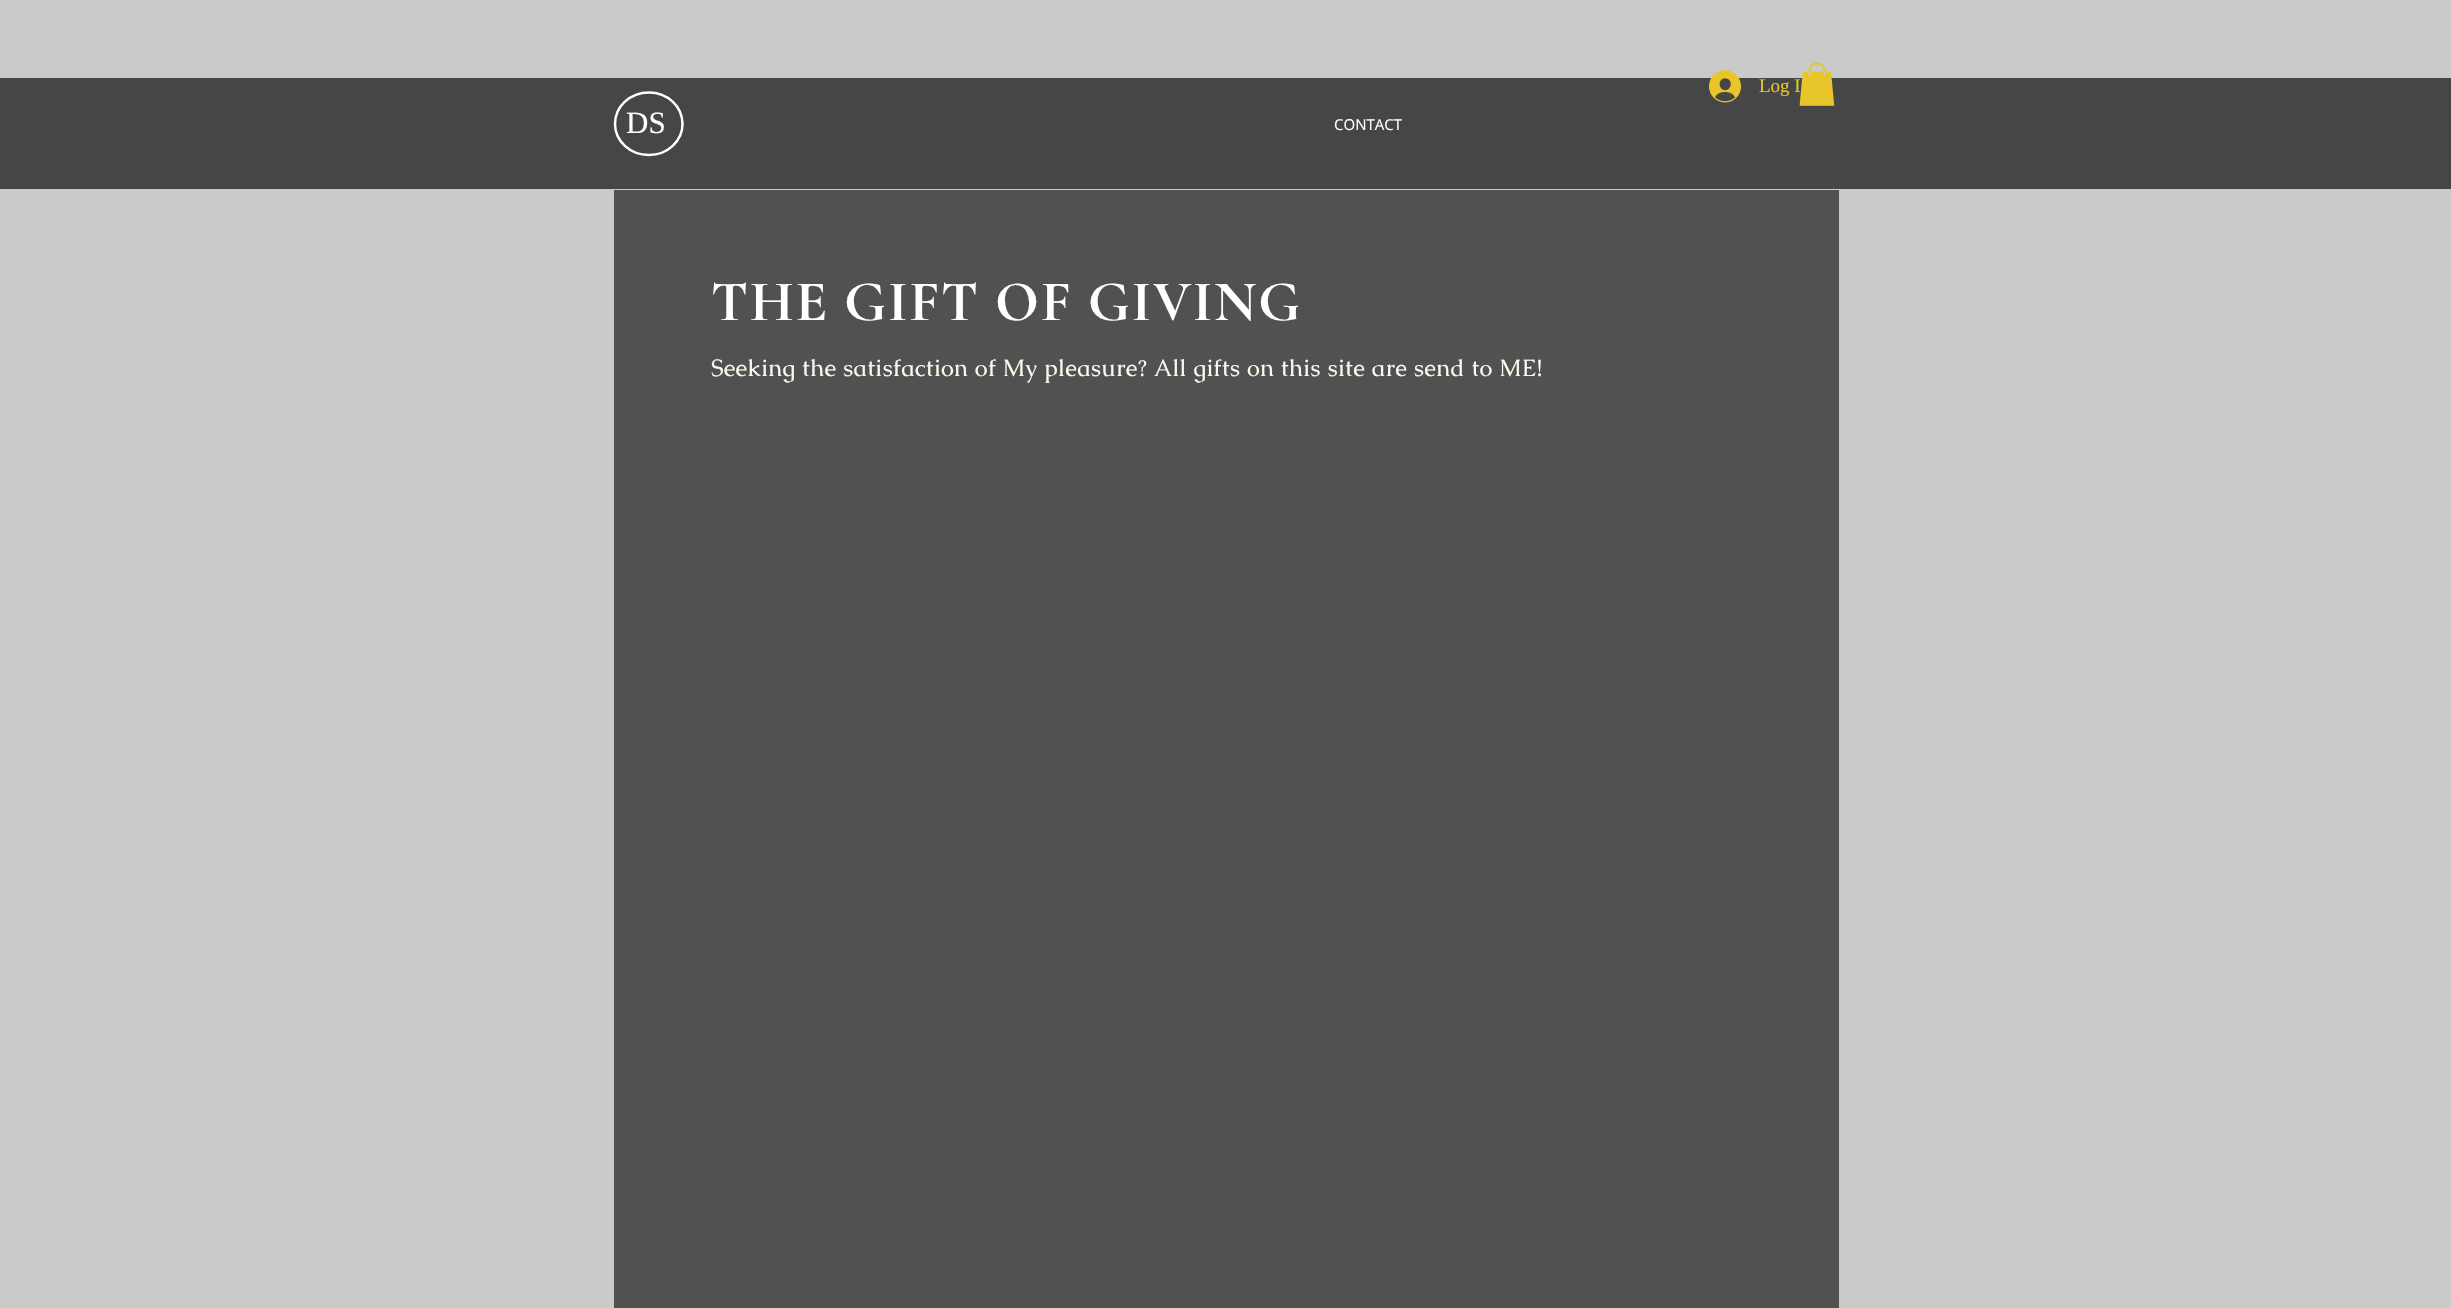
void draw(SkCanvas* canvas) {
	SkPaint fill;
	fill.setAntiAlias(true);
	auto makeFont = [&](const char* family, int weight, float size, bool italic = false) {
		SkFontStyle style(weight, SkFontStyle::kNormal_Width,
			italic ? SkFontStyle::kItalic_Slant : SkFontStyle::kUpright_Slant);
		SkFont result(fontMgr->matchFamilyStyle(family, style), size);
		result.setSubpixel(true);
		return result;
	};
	auto text = [&](const char* s, float x, float y, const SkFont& font) {
		canvas->drawString(s, x, y, font, fill);
	};
	auto spacedText = [&](const char* s, float x, float y, const SkFont& font, const SkPaint& ink, float letter, float word) {
		std::vector<SkGlyphID> glyphs(font.countText(s, strlen(s), SkTextEncoding::kUTF8));
		std::vector<float> xs(glyphs.size());
		font.textToGlyphs(s, strlen(s), SkTextEncoding::kUTF8, glyphs);
		font.getXPos(glyphs, xs, x);
		float extra = 0;
		for (size_t i = 0; i < glyphs.size(); i++) {
			xs[i] += extra;
			extra += letter + word * (glyphs[i] == font.unicharToGlyph(' '));
		}
		canvas->drawTextBlob(SkTextBlob::MakeFromPosHGlyphs(glyphs, xs, y, font), 0, 0, ink);
	};
	auto box = [&](float l, float t, float r, float b) {
		canvas->drawRect(SkRect::MakeLTRB(l, t, r, b), fill);
	};
	auto picture = [&](const char* path, float l, float t, float r, float b) {
		auto image = SkImages::DeferredFromEncodedData(SkData::MakeFromFileName(path));
		canvas->drawImageRect(image, SkRect::MakeLTRB(l, t, r, b), SkSamplingOptions());
	};
	canvas->clear(0xFFCACACA);
	fill.setColor(0xFF464646);
	box(0, 78, 2451, 189);
	picture("image0.png", 1709, 70, 1741, 103);
	fill.setStyle(SkPaint::kStroke_Style);
	fill.setStrokeWidth(2.5f);
	fill.setColor(0xFFFFFFFF);
	canvas->drawPath(SkPathBuilder().moveTo(649, 92.5f).cubicTo(667.5f, 92.5f, 682.5f, 106.5f, 682.5f, 124).cubicTo(682.5f, 141, 667.5f, 155, 649, 155).cubicTo(630, 155, 615, 141, 615, 124).cubicTo(615, 106.5f, 630, 92.5f, 649, 92.5f).close().detach(), fill);
	fill.setStyle(SkPaint::kFill_Style);
	fill.setColor(0xFF515151);
	box(614, 190, 1839, 1308);
	auto font1 = makeFont("Liberation Serif", 400, 19);
	fill.setColor(0xFFE8C529);
	text("Log I", 1759, 92, font1);
	picture("image1.png", 1799, 62, 1835, 106);
	auto font2 = makeFont("Liberation Serif", 400, 31);
	fill.setColor(0xFFFFFFFF);
	text("DS", 626, 133, font2);
	auto font3 = makeFont("Open Sans", 400, 15);
	text("CONTACT", 1334, 130, font3);
	auto font4 = makeFont("Cormorant Garamond", 700, 57.5f);
	spacedText("THE GIFT OF GIVING", 711, 320, font4, fill, 1.75f, 0);
	auto font5 = makeFont("Caudex", 400, 23.75f);
	fill.setColor(0xFFFCF8ED);
	spacedText("Seeking the satisfaction of My pleasure? All gifts on this site are send to ME!", 711, 376, font5, fill, 0.25f, 0);
}
